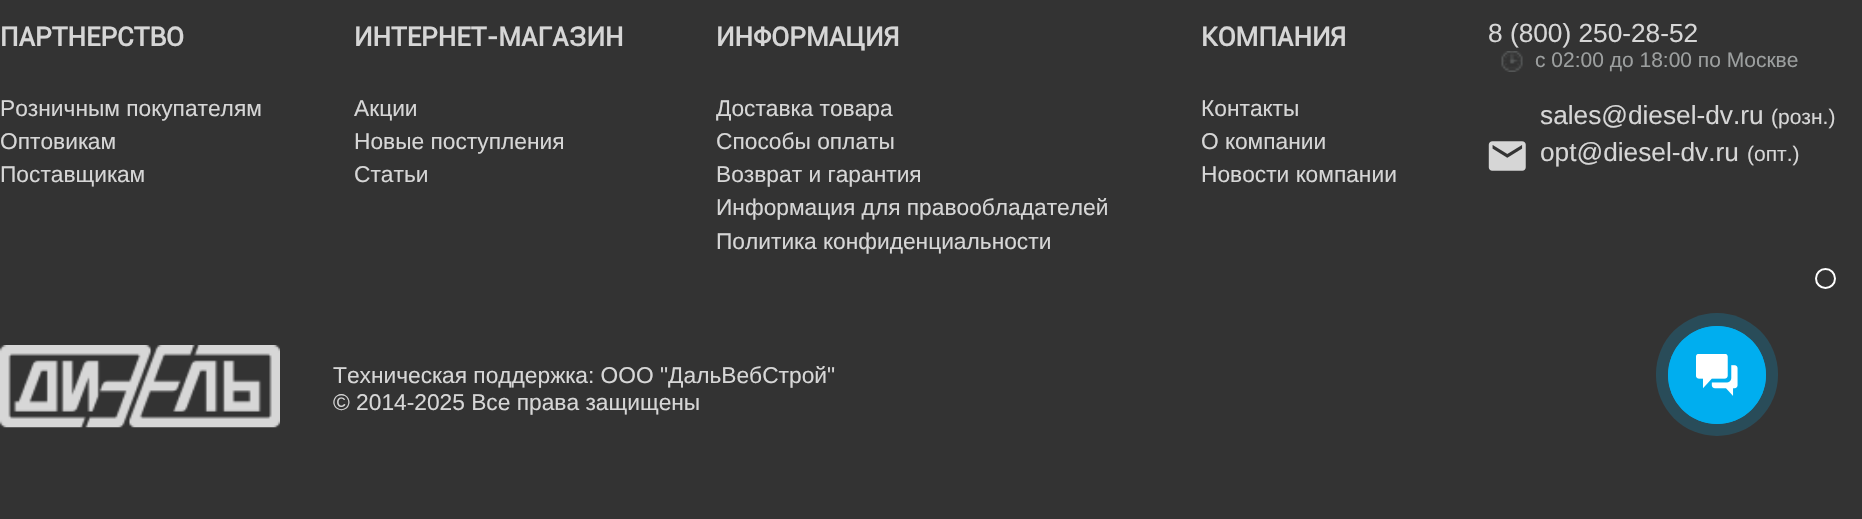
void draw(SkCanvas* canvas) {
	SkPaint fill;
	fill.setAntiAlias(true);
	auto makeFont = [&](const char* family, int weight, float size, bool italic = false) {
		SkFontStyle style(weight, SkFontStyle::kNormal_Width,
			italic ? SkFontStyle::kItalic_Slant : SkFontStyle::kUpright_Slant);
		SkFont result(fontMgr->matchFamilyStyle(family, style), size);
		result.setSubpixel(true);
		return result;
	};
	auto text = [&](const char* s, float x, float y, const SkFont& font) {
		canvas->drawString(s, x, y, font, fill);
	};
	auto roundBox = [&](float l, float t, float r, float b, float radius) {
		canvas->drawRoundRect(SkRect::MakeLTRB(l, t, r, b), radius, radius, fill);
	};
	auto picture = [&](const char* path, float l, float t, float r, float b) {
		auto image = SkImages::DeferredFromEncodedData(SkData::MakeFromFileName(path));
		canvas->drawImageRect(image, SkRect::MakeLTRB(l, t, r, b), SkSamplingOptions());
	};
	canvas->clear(0xFF333333);
	picture("image0.png", 1501, 51, 1523, 72);
	picture("image1.png", 1488, 141, 1526, 171);
	fill.setStyle(SkPaint::kStroke_Style);
	fill.setStrokeWidth(2);
	fill.setColor(0xFFFFFFFF);
	canvas->drawCircle(1825.5f, 278.5f, 9.5f, fill);
	picture("image2.png", 0, 345, 280, 428);
	fill.setStyle(SkPaint::kFill_Style);
	fill.setColor(0xFF294C59);
	roundBox(1656, 313, 1778, 436, 61);
	fill.setStyle(SkPaint::kStroke_Style);
	fill.setStrokeWidth(1);
	fill.setColor(0xFF00AEEF);
	canvas->drawCircle(1717, 375, 48.5f, fill);
	fill.setStyle(SkPaint::kFill_Style);
	canvas->drawCircle(1717, 375, 49, fill);
	picture("image3.png", 1696, 354, 1738, 396);
	auto font1 = makeFont("Roboto", 700, 26.25f);
	fill.setColor(0xFFD6D6D6);
	text("ПАРТНЕРСТВО", 0, 46, font1);
	auto font2 = makeFont("Liberation Sans", 400, 22.75f);
	text("Розничным покупателям", 0, 116, font2);
	text("Оптовикам", 0, 149, font2);
	text("Поставщикам", 0, 182, font2);
	text("ИНТЕРНЕТ-МАГАЗИН", 354, 46, font1);
	text("Акции", 354, 116, font2);
	text("Новые поступления", 354, 149, font2);
	text("Статьи", 354, 182, font2);
	text("ИНФОРМАЦИЯ", 716, 46, font1);
	text("Доставка товара", 716, 116, font2);
	text("Способы оплаты", 716, 149, font2);
	text("Возврат и гарантия", 716, 182, font2);
	text("Информация для правообладателей", 716, 215, font2);
	text("Политика конфиденциальности", 716, 249, font2);
	text("КОМПАНИЯ", 1201, 46, font1);
	text("Контакты", 1201, 116, font2);
	text("О компании", 1201, 149, font2);
	text("Новости компании", 1201, 182, font2);
	auto font3 = makeFont("Liberation Sans", 400, 26.25f);
	text("8 (800) 250-28-52", 1488, 42, font3);
	auto font4 = makeFont("Liberation Sans", 400, 21);
	fill.setColor(0xFF9C9F9F);
	text("с 02:00 до 18:00 по Москве", 1535, 67, font4);
	fill.setColor(0xFFD6D6D6);
	text("sales@diesel-dv.ru", 1540, 124, font3);
	text("(розн.)", 1771, 124, font4);
	text("opt@diesel-dv.ru", 1540, 161, font3);
	text("(опт.)", 1747, 161, font4);
	text("Техническая поддержка: ООО \"ДальВебСтрой\"", 333, 383, font2);
	text("© 2014-2025 Все права защищены", 333, 410, font2);
}
